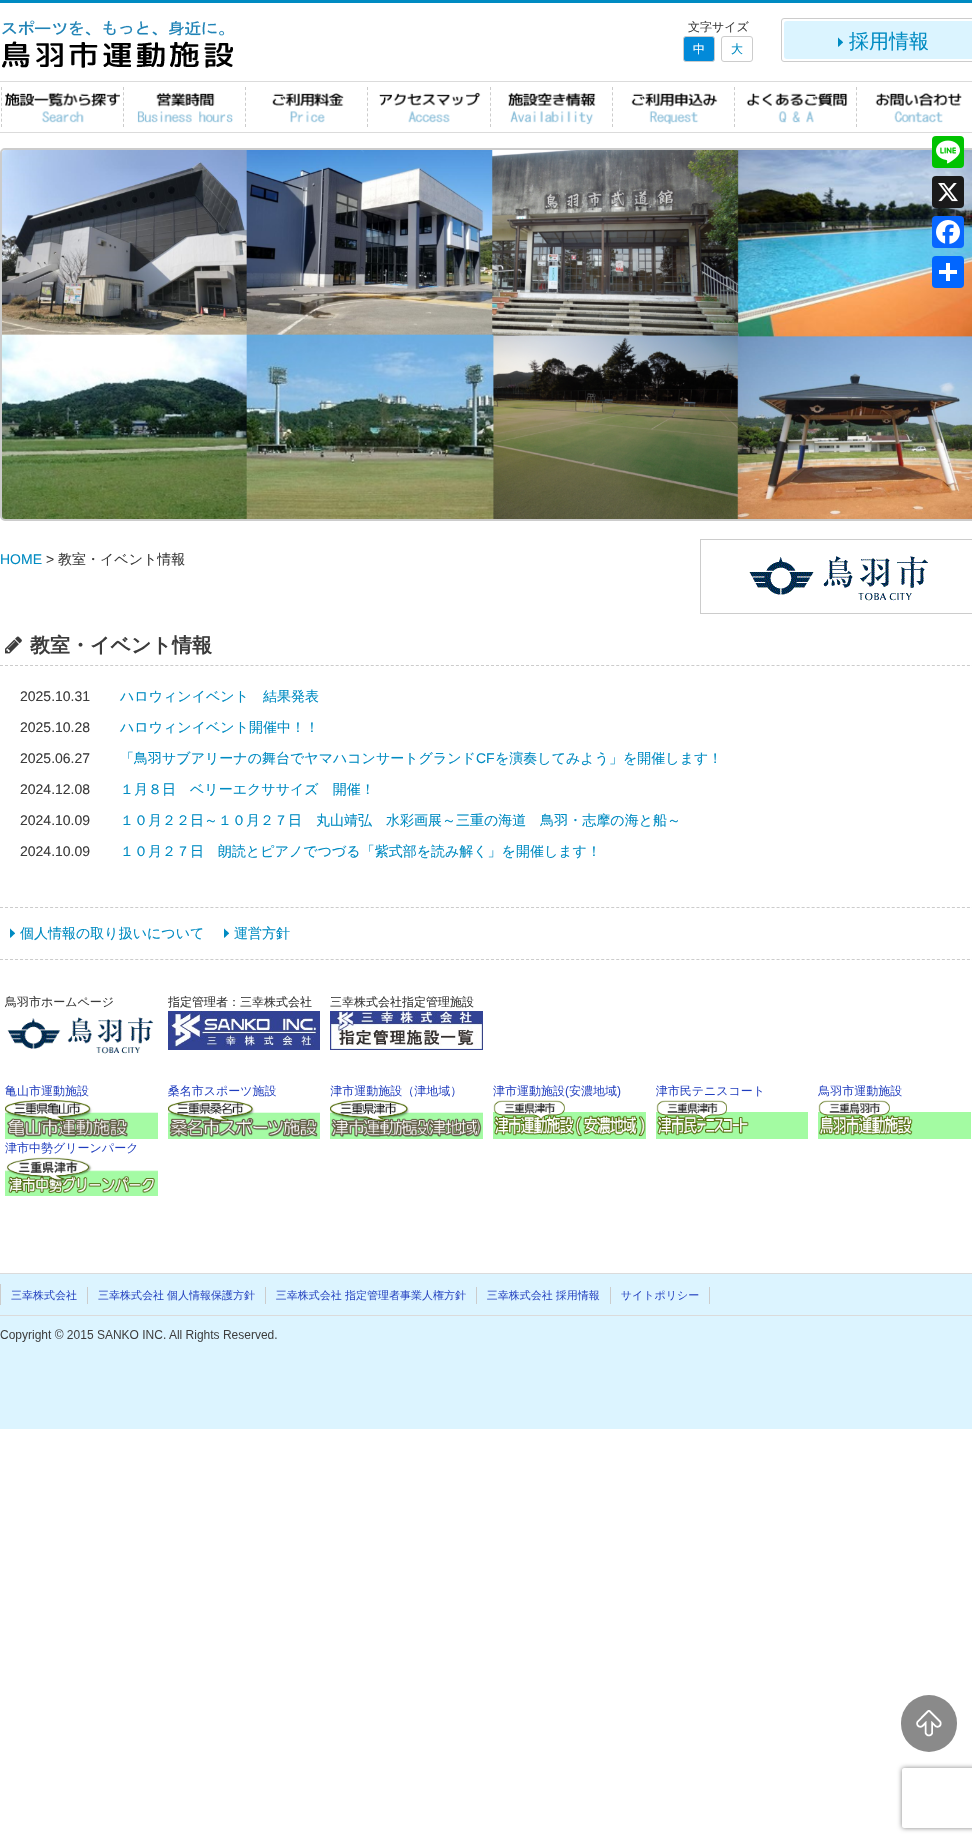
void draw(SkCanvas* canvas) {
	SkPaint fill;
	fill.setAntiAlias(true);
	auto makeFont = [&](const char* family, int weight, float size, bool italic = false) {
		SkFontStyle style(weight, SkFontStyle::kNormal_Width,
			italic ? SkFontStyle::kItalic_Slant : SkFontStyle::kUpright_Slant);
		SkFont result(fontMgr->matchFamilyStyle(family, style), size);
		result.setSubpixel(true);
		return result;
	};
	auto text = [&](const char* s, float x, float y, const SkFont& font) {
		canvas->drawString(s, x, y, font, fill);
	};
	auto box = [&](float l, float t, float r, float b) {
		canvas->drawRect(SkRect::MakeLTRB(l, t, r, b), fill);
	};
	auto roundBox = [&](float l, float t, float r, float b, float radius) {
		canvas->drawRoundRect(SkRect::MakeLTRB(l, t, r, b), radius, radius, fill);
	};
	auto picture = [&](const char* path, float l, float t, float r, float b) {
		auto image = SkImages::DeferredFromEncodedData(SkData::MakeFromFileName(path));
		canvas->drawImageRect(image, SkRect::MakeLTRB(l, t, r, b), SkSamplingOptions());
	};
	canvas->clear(0xFFFFFFFF);
	fill.setColor(0xFF008BC2);
	box(0, 0, 972, 3);
	picture("image0.png", 2, 20, 233, 68);
	fill.setColor(0xFF028AD9);
	canvas->drawRoundRect(SkRect::MakeLTRB(683.5f, 36.5f, 714.5f, 61.5f), 2.5f, 2.5f, fill);
	fill.setStyle(SkPaint::kStroke_Style);
	fill.setStrokeWidth(1);
	fill.setColor(0xFFCCCCCC);
	canvas->drawRoundRect(SkRect::MakeLTRB(683.5f, 36.5f, 714.5f, 61.5f), 2.5f, 2.5f, fill);
	canvas->drawRoundRect(SkRect::MakeLTRB(721.5f, 36.5f, 752.5f, 61.5f), 2.5f, 2.5f, fill);
	canvas->drawRoundRect(SkRect::MakeLTRB(781.5f, 18.5f, 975.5f, 61.5f), 2.5f, 2.5f, fill);
	fill.setStyle(SkPaint::kFill_Style);
	fill.setColor(0xFFDBF4FF);
	roundBox(784, 21, 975, 59, 3);
	picture("image1.png", 838, 37, 843, 47);
	fill.setColor(0xFFDBDBDB);
	box(0, 81, 972, 82);
	box(0, 132, 972, 133);
	fill.setStyle(SkPaint::kStroke_Style);
	fill.setColor(0xFFCCCCCC);
	fill.setPathEffect(SkDashPathEffect::Make({{3, 2.29f}}, 0));
	canvas->drawPath(SkPathBuilder().moveTo(1.5f, 87).lineTo(1.5f, 127).detach(), fill);
	fill.setPathEffect(nullptr);
	picture("image2.png", 5, 92, 120, 123);
	fill.setPathEffect(SkDashPathEffect::Make({{3, 2.29f}}, 0));
	canvas->drawPath(SkPathBuilder().moveTo(123.5f, 87).lineTo(123.5f, 127).detach(), fill);
	fill.setPathEffect(nullptr);
	picture("image3.png", 137, 92, 233, 123);
	fill.setPathEffect(SkDashPathEffect::Make({{3, 2.29f}}, 0));
	canvas->drawPath(SkPathBuilder().moveTo(245.5f, 87).lineTo(245.5f, 127).detach(), fill);
	fill.setPathEffect(nullptr);
	picture("image4.png", 272, 93, 344, 123);
	fill.setPathEffect(SkDashPathEffect::Make({{3, 2.29f}}, 0));
	canvas->drawPath(SkPathBuilder().moveTo(367.5f, 87).lineTo(367.5f, 127).detach(), fill);
	fill.setPathEffect(nullptr);
	picture("image5.png", 379, 92, 481, 123);
	fill.setPathEffect(SkDashPathEffect::Make({{3, 2.29f}}, 0));
	canvas->drawPath(SkPathBuilder().moveTo(490.5f, 87).lineTo(490.5f, 127).detach(), fill);
	fill.setPathEffect(nullptr);
	picture("image6.png", 508, 92, 596, 125);
	fill.setPathEffect(SkDashPathEffect::Make({{3, 2.29f}}, 0));
	canvas->drawPath(SkPathBuilder().moveTo(612.5f, 87).lineTo(612.5f, 127).detach(), fill);
	fill.setPathEffect(nullptr);
	picture("image7.png", 631, 93, 718, 124);
	fill.setPathEffect(SkDashPathEffect::Make({{3, 2.29f}}, 0));
	canvas->drawPath(SkPathBuilder().moveTo(734.5f, 87).lineTo(734.5f, 127).detach(), fill);
	fill.setPathEffect(nullptr);
	picture("image8.png", 746, 93, 848, 123);
	fill.setPathEffect(SkDashPathEffect::Make({{3, 2.29f}}, 0));
	canvas->drawPath(SkPathBuilder().moveTo(856.5f, 87).lineTo(856.5f, 127).detach(), fill);
	fill.setPathEffect(nullptr);
	picture("image9.png", 875, 93, 962, 123);
	fill.setStrokeWidth(2);
	canvas->drawRoundRect(SkRect::MakeLTRB(1, 149, 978, 520), 4, 4, fill);
	picture("image10.png", 2, 150, 972, 519);
	fill.setStrokeWidth(1);
	canvas->drawRect(SkRect::MakeLTRB(700.5f, 539.5f, 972.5f, 613.5f), fill);
	picture("image11.png", 749, 556, 928, 601);
	fill.setPathEffect(SkDashPathEffect::Make({{3, 2.01f}}, 0));
	canvas->drawPath(SkPathBuilder().moveTo(0, 665.5f).lineTo(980, 665.5f).detach(), fill);
	fill.setPathEffect(nullptr);
	picture("image12.png", 5, 636, 22, 654);
	fill.setPathEffect(SkDashPathEffect::Make({{3, 2.01f}}, 0));
	canvas->drawPath(SkPathBuilder().moveTo(0, 907.5f).lineTo(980, 907.5f).detach(), fill);
	fill.setPathEffect(nullptr);
	fill.setPathEffect(SkDashPathEffect::Make({{3, 2.01f}}, 0));
	canvas->drawPath(SkPathBuilder().moveTo(0, 959.5f).lineTo(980, 959.5f).detach(), fill);
	fill.setPathEffect(nullptr);
	picture("image13.png", 10, 928, 15, 938);
	picture("image13.png", 224, 928, 229, 938);
	picture("image14.png", 7, 1017, 154, 1054);
	picture("image15.png", 168, 1011, 320, 1050);
	picture("image16.png", 330, 1011, 483, 1050);
	picture("image17.png", 5, 1084, 971, 1196);
	fill.setStyle(SkPaint::kFill_Style);
	fill.setColor(0xFF8A8A8A);
	roundBox(901, 1695, 957, 1752, 28);
	picture("image18.png", 916, 1710, 942, 1737);
	fill.setColor(0xFFDCF4FF);
	box(0, 1274, 972, 1429);
	picture("image19.png", 0, 1273, 972, 1342);
	fill.setColor(0xFF00C300);
	roundBox(932, 136, 964, 168, 4);
	picture("image20.png", 936, 140, 960, 164);
	fill.setColor(0xFF1A1A1A);
	roundBox(932, 176, 964, 208, 4);
	picture("image21.png", 938, 183, 958, 202);
	fill.setColor(0xFF0866FF);
	roundBox(932, 216, 964, 248, 4);
	picture("image22.png", 936, 220, 960, 244);
	fill.setColor(0xFF0166FF);
	roundBox(932, 256, 964, 288, 4);
	fill.setColor(0xFFFFFFFF);
	box(946, 263, 950, 281);
	box(939, 270, 957, 274);
	canvas->save();
	canvas->clipPath(SkPathBuilder(SkPathFillType::kEvenOdd).moveTo(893, 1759).lineTo(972, 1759).lineTo(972, 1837).lineTo(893, 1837).close().moveTo(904, 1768).lineTo(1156, 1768).cubicTo(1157, 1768, 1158, 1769, 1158, 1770).lineTo(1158, 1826).cubicTo(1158, 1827, 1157, 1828, 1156, 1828).lineTo(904, 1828).cubicTo(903, 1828, 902, 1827, 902, 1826).lineTo(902, 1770).cubicTo(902, 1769, 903, 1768, 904, 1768).close().detach(), true);
	fill.setColor(0xFF808080);
	fill.setMaskFilter(SkMaskFilter::MakeBlur(kNormal_SkBlurStyle, 2.5f));
	canvas->drawRoundRect(SkRect::MakeLTRB(902, 1768, 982, 1828), 2, 2, fill);
	fill.setMaskFilter(nullptr);
	canvas->restore();
	auto font1 = makeFont("WenQuanYi Zen Hei", 500, 12);
	fill.setColor(0xFF3C3C3C);
	text("文字サイズ", 688, 31, font1);
	fill.setColor(0xFFFFFFFF);
	text("中", 693, 53, font1);
	fill.setColor(0xFF008BC2);
	text("大", 731, 53, font1);
	auto font2 = makeFont("WenQuanYi Zen Hei", 500, 20);
	text("採用情報", 849, 48, font2);
	auto font3 = makeFont("Liberation Sans", 400, 14);
	text("HOME", 0, 564, font3);
	fill.setColor(0xFF3C3C3C);
	text(">", 46, 564, font3);
	auto font4 = makeFont("WenQuanYi Zen Hei", 500, 14);
	text("教室・イベント情報", 58, 564, font4);
	auto font5 = makeFont("WenQuanYi Zen Hei", 700, 20);
	text("教室・イベント情報", 30, 652, font5);
	text("2025.10.31", 20, 701, font3);
	fill.setColor(0xFF008BC2);
	text("ハロウィンイベント　結果発表", 120, 701, font4);
	fill.setColor(0xFF3C3C3C);
	text("2025.10.28", 20, 732, font3);
	fill.setColor(0xFF008BC2);
	text("ハロウィンイベント開催中！！", 120, 732, font4);
	fill.setColor(0xFF3C3C3C);
	text("2025.06.27", 20, 763, font3);
	fill.setColor(0xFF008BC2);
	text("「鳥羽サブアリーナの舞台でヤマハコンサートグランド", 120, 763, font4);
	text("CF", 476, 763, font3);
	text("を演奏してみよう」を開催します！", 495, 763, font4);
	fill.setColor(0xFF3C3C3C);
	text("2024.12.08", 20, 794, font3);
	fill.setColor(0xFF008BC2);
	text("１月８日　ベリーエクササイズ　開催！", 120, 794, font4);
	fill.setColor(0xFF3C3C3C);
	text("2024.10.09", 20, 825, font3);
	fill.setColor(0xFF008BC2);
	text("１０月２２日～１０月２７日　丸山靖弘　水彩画展～三重の海道　鳥羽・志摩の海と船～", 120, 825, font4);
	fill.setColor(0xFF3C3C3C);
	text("2024.10.09", 20, 856, font3);
	fill.setColor(0xFF008BC2);
	text("１０月２７日　朗読とピアノでつづる「紫式部を読み解く」を開催します！", 120, 856, font4);
	text("個人情報の取り扱いについて", 20, 938, font4);
	text("運営方針", 234, 938, font4);
	fill.setColor(0xFF3C3C3C);
	text("鳥羽市ホームページ", 5, 1006, font1);
	text("指定管理者：三幸株式会社", 168, 1006, font1);
	text("三幸株式会社指定管理施設", 330, 1006, font1);
}
